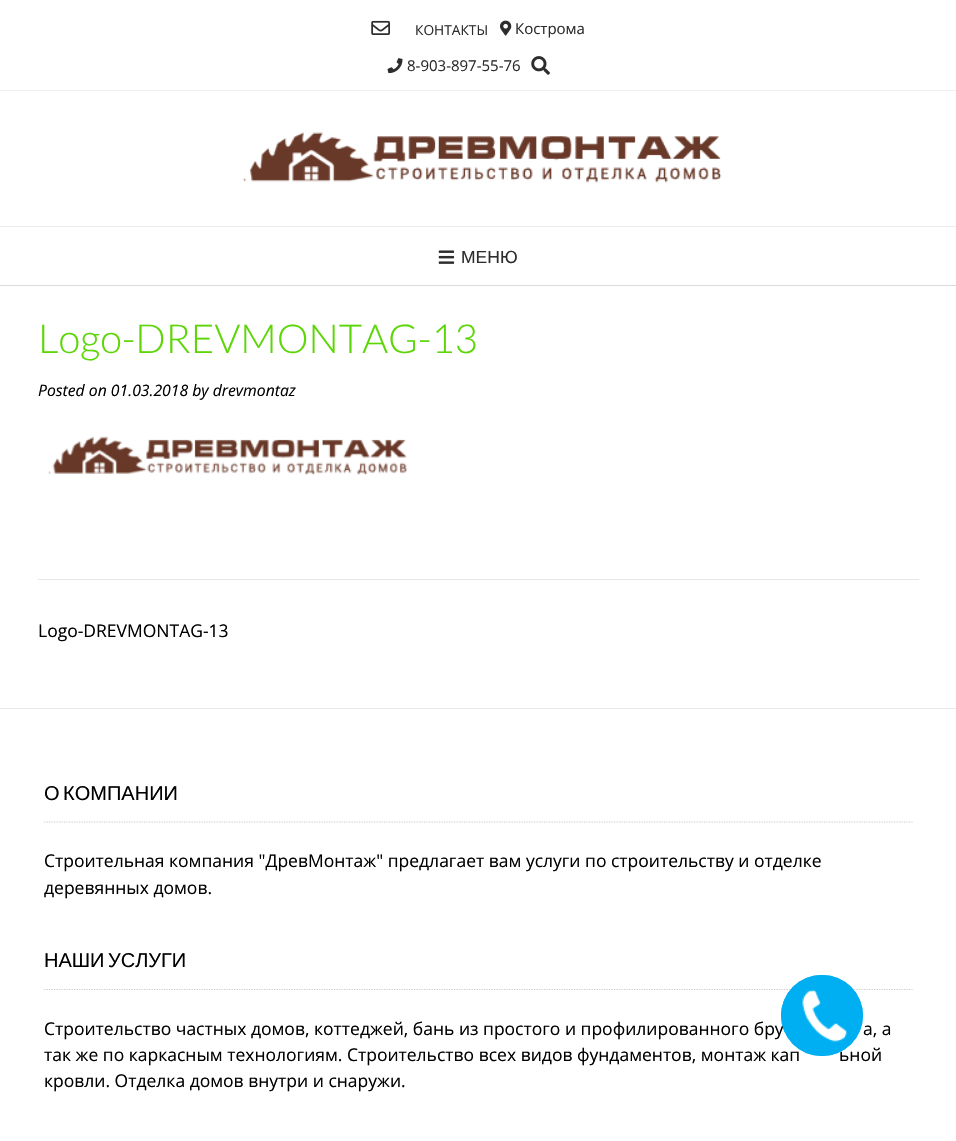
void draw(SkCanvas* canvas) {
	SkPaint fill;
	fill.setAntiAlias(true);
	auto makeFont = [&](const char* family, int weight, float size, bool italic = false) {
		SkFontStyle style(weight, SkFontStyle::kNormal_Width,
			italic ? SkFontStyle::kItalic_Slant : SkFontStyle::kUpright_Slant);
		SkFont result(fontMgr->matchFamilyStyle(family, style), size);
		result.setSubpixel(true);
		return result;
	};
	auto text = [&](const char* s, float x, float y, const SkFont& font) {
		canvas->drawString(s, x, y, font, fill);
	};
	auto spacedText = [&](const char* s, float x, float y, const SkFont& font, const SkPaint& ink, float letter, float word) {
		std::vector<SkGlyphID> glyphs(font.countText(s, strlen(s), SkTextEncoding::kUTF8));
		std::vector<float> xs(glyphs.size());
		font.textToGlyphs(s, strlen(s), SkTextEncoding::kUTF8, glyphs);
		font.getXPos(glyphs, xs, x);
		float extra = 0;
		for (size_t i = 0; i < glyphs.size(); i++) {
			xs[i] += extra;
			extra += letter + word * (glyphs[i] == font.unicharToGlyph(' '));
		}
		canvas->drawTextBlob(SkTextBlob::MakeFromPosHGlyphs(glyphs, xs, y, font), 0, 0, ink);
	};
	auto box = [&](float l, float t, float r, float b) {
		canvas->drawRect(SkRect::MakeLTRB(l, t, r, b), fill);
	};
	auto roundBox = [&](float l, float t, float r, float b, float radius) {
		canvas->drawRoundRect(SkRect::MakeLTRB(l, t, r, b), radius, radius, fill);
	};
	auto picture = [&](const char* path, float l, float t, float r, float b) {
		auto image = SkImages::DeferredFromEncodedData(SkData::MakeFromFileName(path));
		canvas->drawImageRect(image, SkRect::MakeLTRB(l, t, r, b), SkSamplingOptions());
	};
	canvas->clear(0xFFFFFFFF);
	fill.setColor(0xFFDBDBDB);
	box(0, 285, 956, 286);
	fill.setColor(0xFFEFEFEF);
	box(0, 90, 956, 91);
	picture("image0.png", 371, 20, 390, 35);
	picture("image1.png", 500, 20, 512, 36);
	picture("image2.png", 387, 58, 403, 74);
	picture("image3.png", 531, 56, 550, 75);
	picture("image4.png", 243, 132, 722, 183);
	fill.setColor(0xFFEBEBEB);
	box(0, 226, 956, 227);
	picture("image5.png", 438, 250, 455, 264);
	fill.setColor(0xFFE6E6E6);
	box(38, 579, 919, 580);
	picture("image6.png", 48, 436, 408, 475);
	fill.setColor(0xFFE9E9E9);
	box(0, 708, 956, 709);
	fill.setStyle(SkPaint::kStroke_Style);
	fill.setStrokeWidth(1.2f);
	fill.setColor(0xFFCACACA);
	fill.setPathEffect(SkDashPathEffect::Make({{1.25f, 1.25f}}, 0));
	canvas->drawPath(SkPathBuilder().moveTo(44, 822).lineTo(912.5f, 822).detach(), fill);
	fill.setPathEffect(nullptr);
	fill.setPathEffect(SkDashPathEffect::Make({{1.25f, 1.25f}}, 0));
	canvas->drawPath(SkPathBuilder().moveTo(44, 989.5f).lineTo(912.5f, 989.5f).detach(), fill);
	fill.setPathEffect(nullptr);
	auto font1 = makeFont("Open Sans", 400, 13.75f);
	fill.setStyle(SkPaint::kFill_Style);
	fill.setColor(0xFF2D2D2D);
	text("КОНТАКТЫ", 415, 35, font1);
	auto font2 = makeFont("Open Sans", 400, 15);
	text("Кострома", 515, 34, font2);
	text("8-903-897-55-76", 407, 71, font2);
	auto font3 = makeFont("Liberation Sans", 400, 17.5f);
	text("МЕНЮ", 461, 263, font3);
	auto font4 = makeFont("Lato", 300, 40);
	fill.setColor(0xFF5CD606);
	text("Logo-DREVMONTAG-13", 38, 353, font4);
	auto font5 = makeFont("Open Sans", 400, 15.75f, true);
	fill.setColor(0xFF000000);
	text("Posted on 01.03.2018 by drevmontaz", 38, 396, font5);
	auto font6 = makeFont("Open Sans", 400, 17.5f);
	text("Logo-DREVMONTAG-13", 38, 637, font6);
	auto font7 = makeFont("Liberation Sans", 400, 20);
	spacedText("О КОМПАНИИ", 44, 800, font7, fill, 0, -2);
	text("Строительная компания \"ДревМонтаж\" предлагает вам услуги по строительству и отделке", 44, 867, font6);
	text("деревянных домов.", 44, 894, font6);
	spacedText("НАШИ УСЛУГИ", 44, 967, font7, fill, 0, -2);
	text("Строительство частных домов, коттеджей, бань из простого и профилированного бру", 44, 1035, font6);
	text("а, а", 863, 1035, font6);
	text("так же по каркасным технологиям. Строительство всех видов фундаментов, монтаж кап", 44, 1061, font6);
	text("ьной", 839, 1061, font6);
	text("кровли. Отделка домов внутри и снаружи.", 44, 1087, font6);
	fill.setStyle(SkPaint::kStroke_Style);
	fill.setStrokeWidth(1);
	fill.setColor(0xFF00AFF2);
	canvas->drawRoundRect(SkRect::MakeLTRB(781.5f, 975.5f, 862.5f, 1055.5f), 40, 40, fill);
	fill.setStyle(SkPaint::kFill_Style);
	roundBox(781, 975, 863, 1056, 40.5f);
	picture("image7.png", 802, 990, 847, 1042);
}
